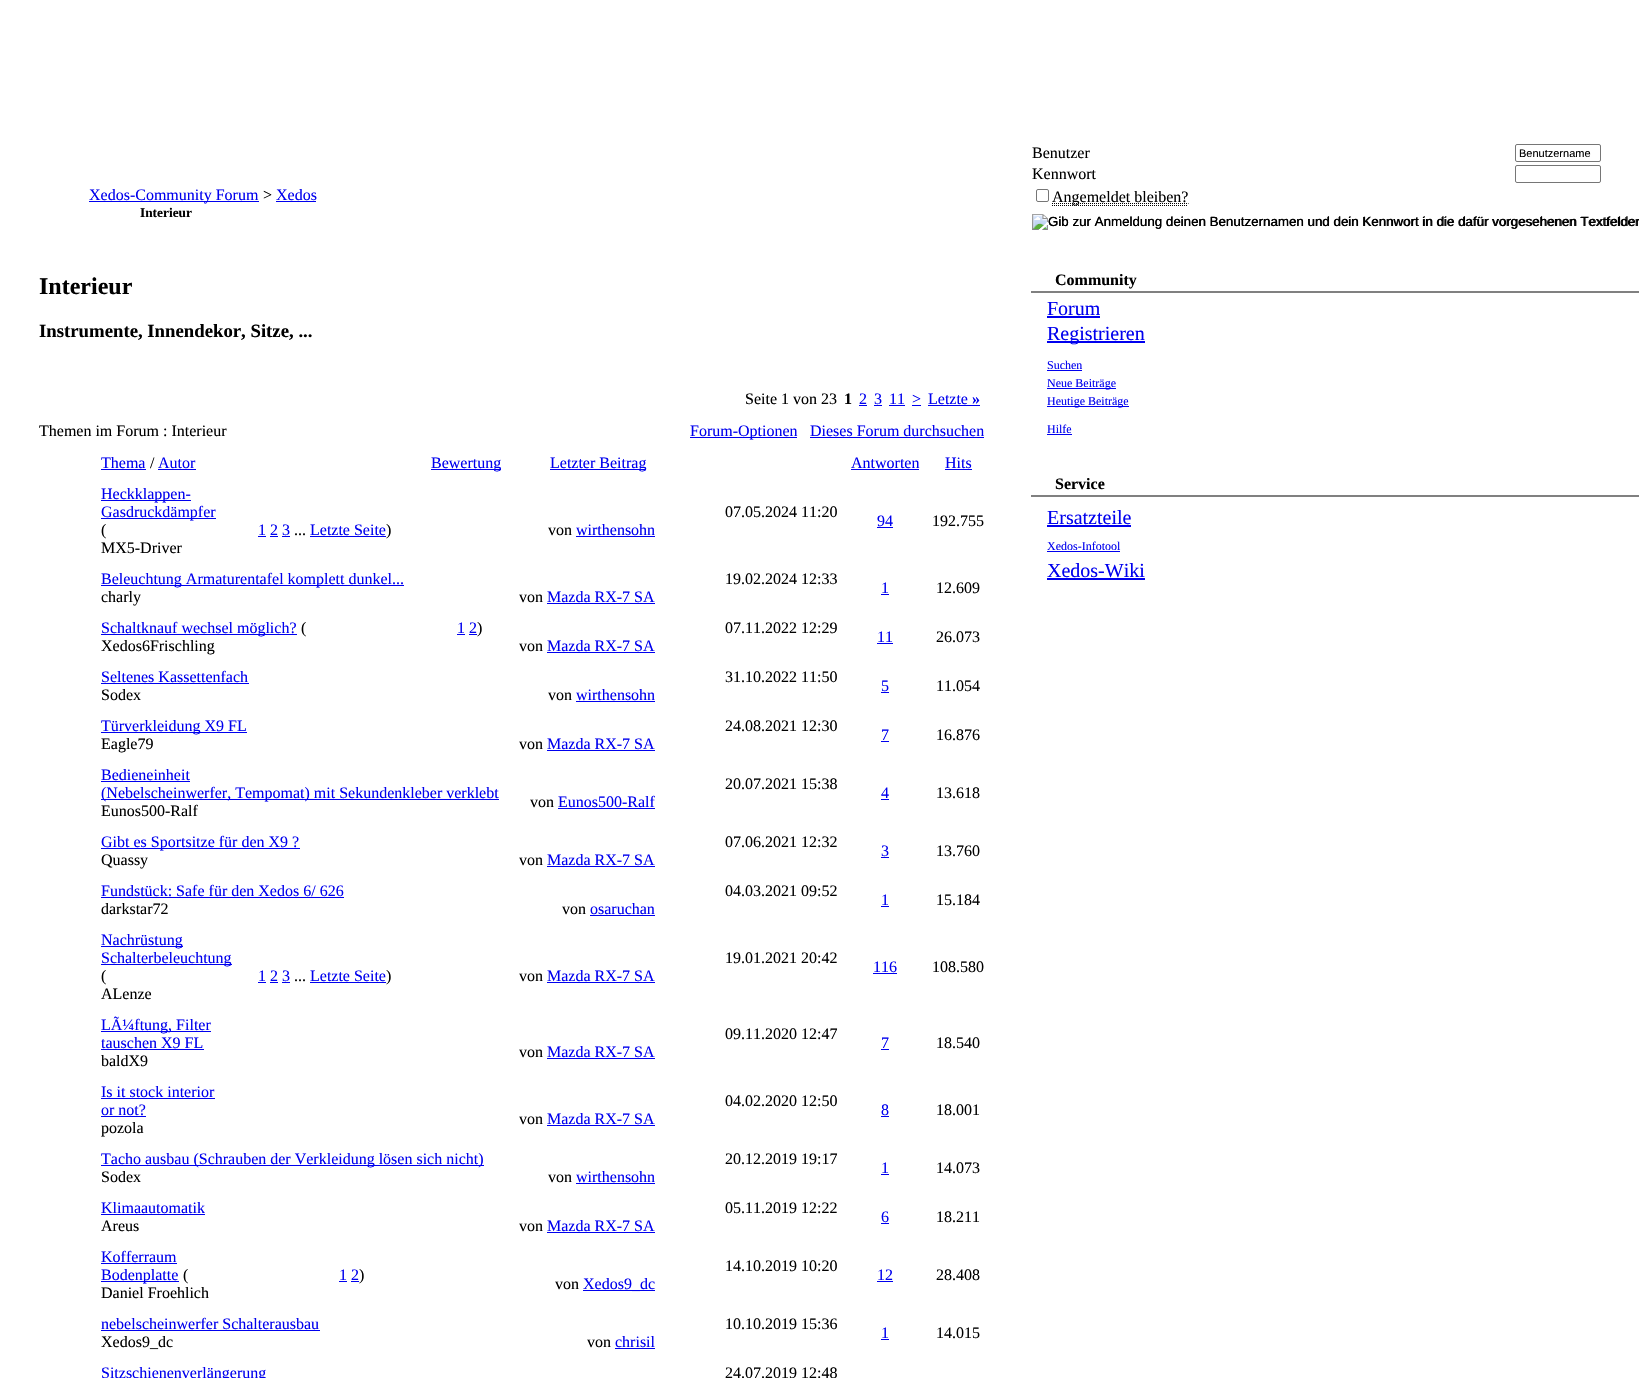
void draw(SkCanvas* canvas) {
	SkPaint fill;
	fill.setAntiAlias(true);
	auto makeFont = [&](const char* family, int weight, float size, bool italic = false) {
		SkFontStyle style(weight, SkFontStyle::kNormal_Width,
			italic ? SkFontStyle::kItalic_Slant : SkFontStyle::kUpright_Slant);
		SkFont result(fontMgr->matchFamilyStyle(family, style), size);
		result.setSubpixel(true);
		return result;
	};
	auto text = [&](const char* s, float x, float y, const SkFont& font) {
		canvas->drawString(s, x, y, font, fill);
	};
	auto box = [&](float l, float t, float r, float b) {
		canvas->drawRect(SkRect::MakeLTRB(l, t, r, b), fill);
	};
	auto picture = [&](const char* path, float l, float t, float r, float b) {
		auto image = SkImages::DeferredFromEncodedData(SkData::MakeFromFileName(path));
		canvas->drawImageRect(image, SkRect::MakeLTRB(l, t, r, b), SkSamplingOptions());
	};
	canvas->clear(0xFFFFFFFF);
	fill.setColor(0xFF0000EE);
	box(89, 201, 259, 202);
	box(276, 201, 316, 202);
	box(859, 405, 867, 406);
	box(874, 405, 882, 406);
	box(889, 405, 905, 406);
	box(912, 405, 921, 406);
	box(928, 405, 980, 406);
	box(690, 437, 797, 438);
	box(810, 437, 984, 438);
	box(101, 469, 146, 470);
	box(158, 469, 196, 470);
	box(431, 469, 501, 470);
	box(550, 469, 646, 470);
	box(851, 469, 919, 470);
	box(945, 469, 972, 470);
	box(101, 500, 191, 501);
	box(101, 518, 216, 519);
	box(258, 536, 266, 537);
	box(270, 536, 278, 537);
	box(282, 536, 290, 537);
	box(310, 536, 386, 537);
	box(576, 536, 655, 537);
	box(877, 527, 893, 528);
	box(101, 585, 404, 586);
	box(547, 603, 655, 604);
	box(881, 594, 889, 595);
	box(101, 634, 297, 635);
	box(457, 634, 465, 635);
	box(469, 634, 477, 635);
	box(547, 652, 655, 653);
	box(877, 643, 893, 644);
	box(101, 683, 249, 684);
	box(576, 701, 655, 702);
	box(881, 692, 889, 693);
	box(101, 732, 247, 733);
	box(547, 750, 655, 751);
	box(881, 741, 889, 742);
	box(101, 781, 190, 782);
	box(101, 799, 499, 800);
	box(558, 808, 655, 809);
	box(881, 799, 889, 800);
	box(101, 848, 300, 849);
	box(547, 866, 655, 867);
	box(881, 857, 889, 858);
	box(101, 897, 344, 898);
	box(590, 915, 655, 916);
	box(881, 906, 889, 907);
	box(101, 946, 183, 947);
	box(101, 964, 232, 965);
	box(258, 982, 266, 983);
	box(270, 982, 278, 983);
	box(282, 982, 290, 983);
	box(310, 982, 386, 983);
	box(547, 982, 655, 983);
	box(873, 973, 897, 974);
	box(101, 1031, 211, 1032);
	box(101, 1049, 204, 1050);
	box(547, 1058, 655, 1059);
	box(881, 1049, 889, 1050);
	box(101, 1098, 215, 1099);
	box(101, 1116, 146, 1117);
	box(547, 1125, 655, 1126);
	box(881, 1116, 889, 1117);
	box(101, 1165, 484, 1166);
	box(576, 1183, 655, 1184);
	box(881, 1174, 889, 1175);
	box(101, 1214, 205, 1215);
	box(547, 1232, 655, 1233);
	box(881, 1223, 889, 1224);
	box(101, 1263, 177, 1264);
	box(101, 1281, 179, 1282);
	box(339, 1281, 347, 1282);
	box(351, 1281, 359, 1282);
	box(583, 1290, 655, 1291);
	box(877, 1281, 893, 1282);
	box(101, 1330, 320, 1331);
	box(615, 1348, 655, 1349);
	box(881, 1339, 889, 1340);
	fill.setStyle(SkPaint::kStroke_Style);
	fill.setStrokeWidth(1);
	fill.setColor(0xFF767676);
	canvas->drawRoundRect(SkRect::MakeLTRB(1515.5f, 144.5f, 1600.5f, 161.5f), 1.5f, 1.5f, fill);
	canvas->drawRoundRect(SkRect::MakeLTRB(1515.5f, 165.5f, 1600.5f, 182.5f), 1.5f, 1.5f, fill);
	canvas->drawRoundRect(SkRect::MakeLTRB(1036.5f, 189.5f, 1048.5f, 201.5f), 1.5f, 1.5f, fill);
	fill.setColor(0xFF000000);
	fill.setPathEffect(SkDashPathEffect::Make({{1, 1}}, 0));
	canvas->drawPath(SkPathBuilder().moveTo(1052, 205.5f).lineTo(1188, 205.5f).detach(), fill);
	fill.setPathEffect(nullptr);
	fill.setPathEffect(SkDashPathEffect::Make({{1, 1}}, 0));
	canvas->drawPath(SkPathBuilder().moveTo(1052, 203.5f).lineTo(1188.5f, 203.5f).detach(), fill);
	fill.setPathEffect(nullptr);
	picture("image0.png", 1032, 214, 1639, 230);
	fill.setStyle(SkPaint::kFill_Style);
	fill.setColor(0xFF808080);
	box(1032, 292, 1639, 293);
	box(1031, 291, 1639, 292);
	box(1031, 291, 1032, 293);
	fill.setColor(0xFF0000EE);
	box(1047, 316, 1100, 318);
	box(1047, 341, 1145, 343);
	box(1047, 370, 1082, 371);
	box(1047, 388, 1116, 389);
	box(1047, 406, 1129, 407);
	box(1047, 434, 1072, 435);
	fill.setColor(0xFF808080);
	box(1032, 496, 1639, 497);
	box(1031, 495, 1639, 496);
	box(1031, 495, 1032, 497);
	fill.setColor(0xFF0000EE);
	box(1047, 525, 1131, 527);
	box(1047, 551, 1120, 552);
	box(1047, 578, 1145, 580);
	auto font1 = makeFont("Liberation Serif", 400, 16);
	text("Xedos-Community Forum", 89, 200, font1);
	fill.setColor(0xFF000000);
	text(">", 263, 200, font1);
	fill.setColor(0xFF0000EE);
	text("Xedos", 276, 200, font1);
	auto font2 = makeFont("Liberation Serif", 700, 13.35f);
	fill.setColor(0xFF000000);
	text("Interieur", 140, 217, font2);
	auto font3 = makeFont("Liberation Serif", 700, 24);
	text("Interieur", 39, 294, font3);
	auto font4 = makeFont("Liberation Serif", 700, 18.75f);
	text("Instrumente, Innendekor, Sitze, ...", 39, 337, font4);
	text("Seite 1 von 23", 745, 404, font1);
	auto font5 = makeFont("Liberation Serif", 700, 16);
	text("1", 844, 404, font5);
	fill.setColor(0xFF0000EE);
	text("2", 859, 404, font1);
	text("3", 874, 404, font1);
	text("11", 889, 404, font1);
	text(">", 912, 404, font1);
	text("Letzte", 928, 404, font1);
	text("»", 972, 404, font5);
	fill.setColor(0xFF000000);
	text("Themen im Forum : Interieur", 39, 436, font1);
	fill.setColor(0xFF0000EE);
	text("Forum-Optionen", 690, 436, font1);
	text("Dieses Forum durchsuchen", 810, 436, font1);
	text("Thema", 101, 468, font1);
	fill.setColor(0xFF000000);
	text("/", 150, 468, font1);
	fill.setColor(0xFF0000EE);
	text("Autor", 158, 468, font1);
	text("Bewertung", 431, 468, font1);
	text("Letzter Beitrag", 550, 468, font1);
	text("Antworten", 851, 468, font1);
	text("Hits", 945, 468, font1);
	text("Heckklappen-", 101, 499, font1);
	text("Gasdruckdämpfer", 101, 517, font1);
	fill.setColor(0xFF000000);
	text("(", 101, 535, font1);
	fill.setColor(0xFF0000EE);
	text("1 2 3", 258, 535, font1);
	fill.setColor(0xFF000000);
	text("...", 294, 535, font1);
	fill.setColor(0xFF0000EE);
	text("Letzte Seite", 310, 535, font1);
	fill.setColor(0xFF000000);
	text(")", 386, 535, font1);
	text("MX5-Driver", 101, 553, font1);
	text("07.05.2024 11:20", 725, 517, font1);
	text("von", 548, 535, font1);
	fill.setColor(0xFF0000EE);
	text("wirthensohn", 576, 535, font1);
	text("94", 877, 526, font1);
	fill.setColor(0xFF000000);
	text("192.755", 932, 526, font1);
	fill.setColor(0xFF0000EE);
	text("Beleuchtung Armaturentafel komplett dunkel...", 101, 584, font1);
	fill.setColor(0xFF000000);
	text("charly", 101, 602, font1);
	text("19.02.2024 12:33", 725, 584, font1);
	text("von", 519, 602, font1);
	fill.setColor(0xFF0000EE);
	text("Mazda RX-7 SA", 547, 602, font1);
	text("1", 881, 593, font1);
	fill.setColor(0xFF000000);
	text("12.609", 936, 593, font1);
	fill.setColor(0xFF0000EE);
	text("Schaltknauf wechsel möglich?", 101, 633, font1);
	fill.setColor(0xFF000000);
	text("(", 301, 633, font1);
	fill.setColor(0xFF0000EE);
	text("1 2", 457, 633, font1);
	fill.setColor(0xFF000000);
	text(")", 477, 633, font1);
	text("Xedos6Frischling", 101, 651, font1);
	text("07.11.2022 12:29", 725, 633, font1);
	text("von", 519, 651, font1);
	fill.setColor(0xFF0000EE);
	text("Mazda RX-7 SA", 547, 651, font1);
	text("11", 877, 642, font1);
	fill.setColor(0xFF000000);
	text("26.073", 936, 642, font1);
	fill.setColor(0xFF0000EE);
	text("Seltenes Kassettenfach", 101, 682, font1);
	fill.setColor(0xFF000000);
	text("Sodex", 101, 700, font1);
	text("31.10.2022 11:50", 725, 682, font1);
	text("von", 548, 700, font1);
	fill.setColor(0xFF0000EE);
	text("wirthensohn", 576, 700, font1);
	text("5", 881, 691, font1);
	fill.setColor(0xFF000000);
	text("11.054", 936, 691, font1);
	fill.setColor(0xFF0000EE);
	text("Türverkleidung X9 FL", 101, 731, font1);
	fill.setColor(0xFF000000);
	text("Eagle79", 101, 749, font1);
	text("24.08.2021 12:30", 725, 731, font1);
	text("von", 519, 749, font1);
	fill.setColor(0xFF0000EE);
	text("Mazda RX-7 SA", 547, 749, font1);
	text("7", 881, 740, font1);
	fill.setColor(0xFF000000);
	text("16.876", 936, 740, font1);
	fill.setColor(0xFF0000EE);
	text("Bedieneinheit", 101, 780, font1);
	text("(Nebelscheinwerfer, Tempomat) mit Sekundenkleber verklebt", 101, 798, font1);
	fill.setColor(0xFF000000);
	text("Eunos500-Ralf", 101, 816, font1);
	text("20.07.2021 15:38", 725, 789, font1);
	text("von", 530, 807, font1);
	fill.setColor(0xFF0000EE);
	text("Eunos500-Ralf", 558, 807, font1);
	text("4", 881, 798, font1);
	fill.setColor(0xFF000000);
	text("13.618", 936, 798, font1);
	fill.setColor(0xFF0000EE);
	text("Gibt es Sportsitze für den X9 ?", 101, 847, font1);
	fill.setColor(0xFF000000);
	text("Quassy", 101, 865, font1);
	text("07.06.2021 12:32", 725, 847, font1);
	text("von", 519, 865, font1);
	fill.setColor(0xFF0000EE);
	text("Mazda RX-7 SA", 547, 865, font1);
	text("3", 881, 856, font1);
	fill.setColor(0xFF000000);
	text("13.760", 936, 856, font1);
	fill.setColor(0xFF0000EE);
	text("Fundstück: Safe für den Xedos 6/ 626", 101, 896, font1);
	fill.setColor(0xFF000000);
	text("darkstar72", 101, 914, font1);
	text("04.03.2021 09:52", 725, 896, font1);
	text("von", 562, 914, font1);
	fill.setColor(0xFF0000EE);
	text("osaruchan", 590, 914, font1);
	text("1", 881, 905, font1);
	fill.setColor(0xFF000000);
	text("15.184", 936, 905, font1);
	fill.setColor(0xFF0000EE);
	text("Nachrüstung", 101, 945, font1);
	text("Schalterbeleuchtung", 101, 963, font1);
	fill.setColor(0xFF000000);
	text("(", 101, 981, font1);
	fill.setColor(0xFF0000EE);
	text("1 2 3", 258, 981, font1);
	fill.setColor(0xFF000000);
	text("...", 294, 981, font1);
	fill.setColor(0xFF0000EE);
	text("Letzte Seite", 310, 981, font1);
	fill.setColor(0xFF000000);
	text(")", 386, 981, font1);
	text("ALenze", 101, 999, font1);
	text("19.01.2021 20:42", 725, 963, font1);
	text("von", 519, 981, font1);
	fill.setColor(0xFF0000EE);
	text("Mazda RX-7 SA", 547, 981, font1);
	text("116", 873, 972, font1);
	fill.setColor(0xFF000000);
	text("108.580", 932, 972, font1);
	fill.setColor(0xFF0000EE);
	text("LÃ¼ftung, Filter", 101, 1030, font1);
	text("tauschen X9 FL", 101, 1048, font1);
	fill.setColor(0xFF000000);
	text("baldX9", 101, 1066, font1);
	text("09.11.2020 12:47", 725, 1039, font1);
	text("von", 519, 1057, font1);
	fill.setColor(0xFF0000EE);
	text("Mazda RX-7 SA", 547, 1057, font1);
	text("7", 881, 1048, font1);
	fill.setColor(0xFF000000);
	text("18.540", 936, 1048, font1);
	fill.setColor(0xFF0000EE);
	text("Is it stock interior", 101, 1097, font1);
	text("or not?", 101, 1115, font1);
	fill.setColor(0xFF000000);
	text("pozola", 101, 1133, font1);
	text("04.02.2020 12:50", 725, 1106, font1);
	text("von", 519, 1124, font1);
	fill.setColor(0xFF0000EE);
	text("Mazda RX-7 SA", 547, 1124, font1);
	text("8", 881, 1115, font1);
	fill.setColor(0xFF000000);
	text("18.001", 936, 1115, font1);
	fill.setColor(0xFF0000EE);
	text("Tacho ausbau (Schrauben der Verkleidung lösen sich nicht)", 101, 1164, font1);
	fill.setColor(0xFF000000);
	text("Sodex", 101, 1182, font1);
	text("20.12.2019 19:17", 725, 1164, font1);
	text("von", 548, 1182, font1);
	fill.setColor(0xFF0000EE);
	text("wirthensohn", 576, 1182, font1);
	text("1", 881, 1173, font1);
	fill.setColor(0xFF000000);
	text("14.073", 936, 1173, font1);
	fill.setColor(0xFF0000EE);
	text("Klimaautomatik", 101, 1213, font1);
	fill.setColor(0xFF000000);
	text("Areus", 101, 1231, font1);
	text("05.11.2019 12:22", 725, 1213, font1);
	text("von", 519, 1231, font1);
	fill.setColor(0xFF0000EE);
	text("Mazda RX-7 SA", 547, 1231, font1);
	text("6", 881, 1222, font1);
	fill.setColor(0xFF000000);
	text("18.211", 936, 1222, font1);
	fill.setColor(0xFF0000EE);
	text("Kofferraum", 101, 1262, font1);
	text("Bodenplatte", 101, 1280, font1);
	fill.setColor(0xFF000000);
	text("(", 183, 1280, font1);
	fill.setColor(0xFF0000EE);
	text("1 2", 339, 1280, font1);
	fill.setColor(0xFF000000);
	text(")", 359, 1280, font1);
	text("Daniel Froehlich", 101, 1298, font1);
	text("14.10.2019 10:20", 725, 1271, font1);
	text("von", 555, 1289, font1);
	fill.setColor(0xFF0000EE);
	text("Xedos9_dc", 583, 1289, font1);
	text("12", 877, 1280, font1);
	fill.setColor(0xFF000000);
	text("28.408", 936, 1280, font1);
	fill.setColor(0xFF0000EE);
	text("nebelscheinwerfer Schalterausbau", 101, 1329, font1);
	fill.setColor(0xFF000000);
	text("Xedos9_dc", 101, 1347, font1);
	text("10.10.2019 15:36", 725, 1329, font1);
	text("von", 587, 1347, font1);
	fill.setColor(0xFF0000EE);
	text("chrisil", 615, 1347, font1);
	text("1", 881, 1338, font1);
	fill.setColor(0xFF000000);
	text("14.015", 936, 1338, font1);
	fill.setColor(0xFF0000EE);
	text("Sitzschienenverlängerung", 101, 1378, font1);
	fill.setColor(0xFF000000);
	text("24.07.2019 12:48", 725, 1378, font1);
	text("Benutzer", 1032, 158, font1);
	auto font6 = makeFont("Liberation Sans", 400, 11);
	text("Benutzername", 1519, 157, font6);
	text("Kennwort", 1032, 179, font1);
	text("Angemeldet bleiben?", 1052, 202, font1);
	auto font7 = makeFont("Liberation Sans", 400, 13.35f);
	text("Gib zur Anmeldung deinen Benutzernamen und dein Kennwort in die dafür vorgesehenen Textfelder", 1048, 226, font7);
	text("Community", 1055, 285, font5);
	auto font8 = makeFont("Liberation Serif", 400, 20);
	fill.setColor(0xFF0000EE);
	text("Forum", 1047, 315, font8);
	text("Registrieren", 1047, 340, font8);
	auto font9 = makeFont("Liberation Serif", 400, 12);
	text("Suchen", 1047, 369, font9);
	text("Neue Beiträge", 1047, 387, font9);
	text("Heutige Beiträge", 1047, 405, font9);
	text("Hilfe", 1047, 433, font9);
	fill.setColor(0xFF000000);
	text("Service", 1055, 489, font5);
	fill.setColor(0xFF0000EE);
	text("Ersatzteile", 1047, 524, font8);
	text("Xedos-Infotool", 1047, 550, font9);
	text("Xedos-Wiki", 1047, 577, font8);
}
